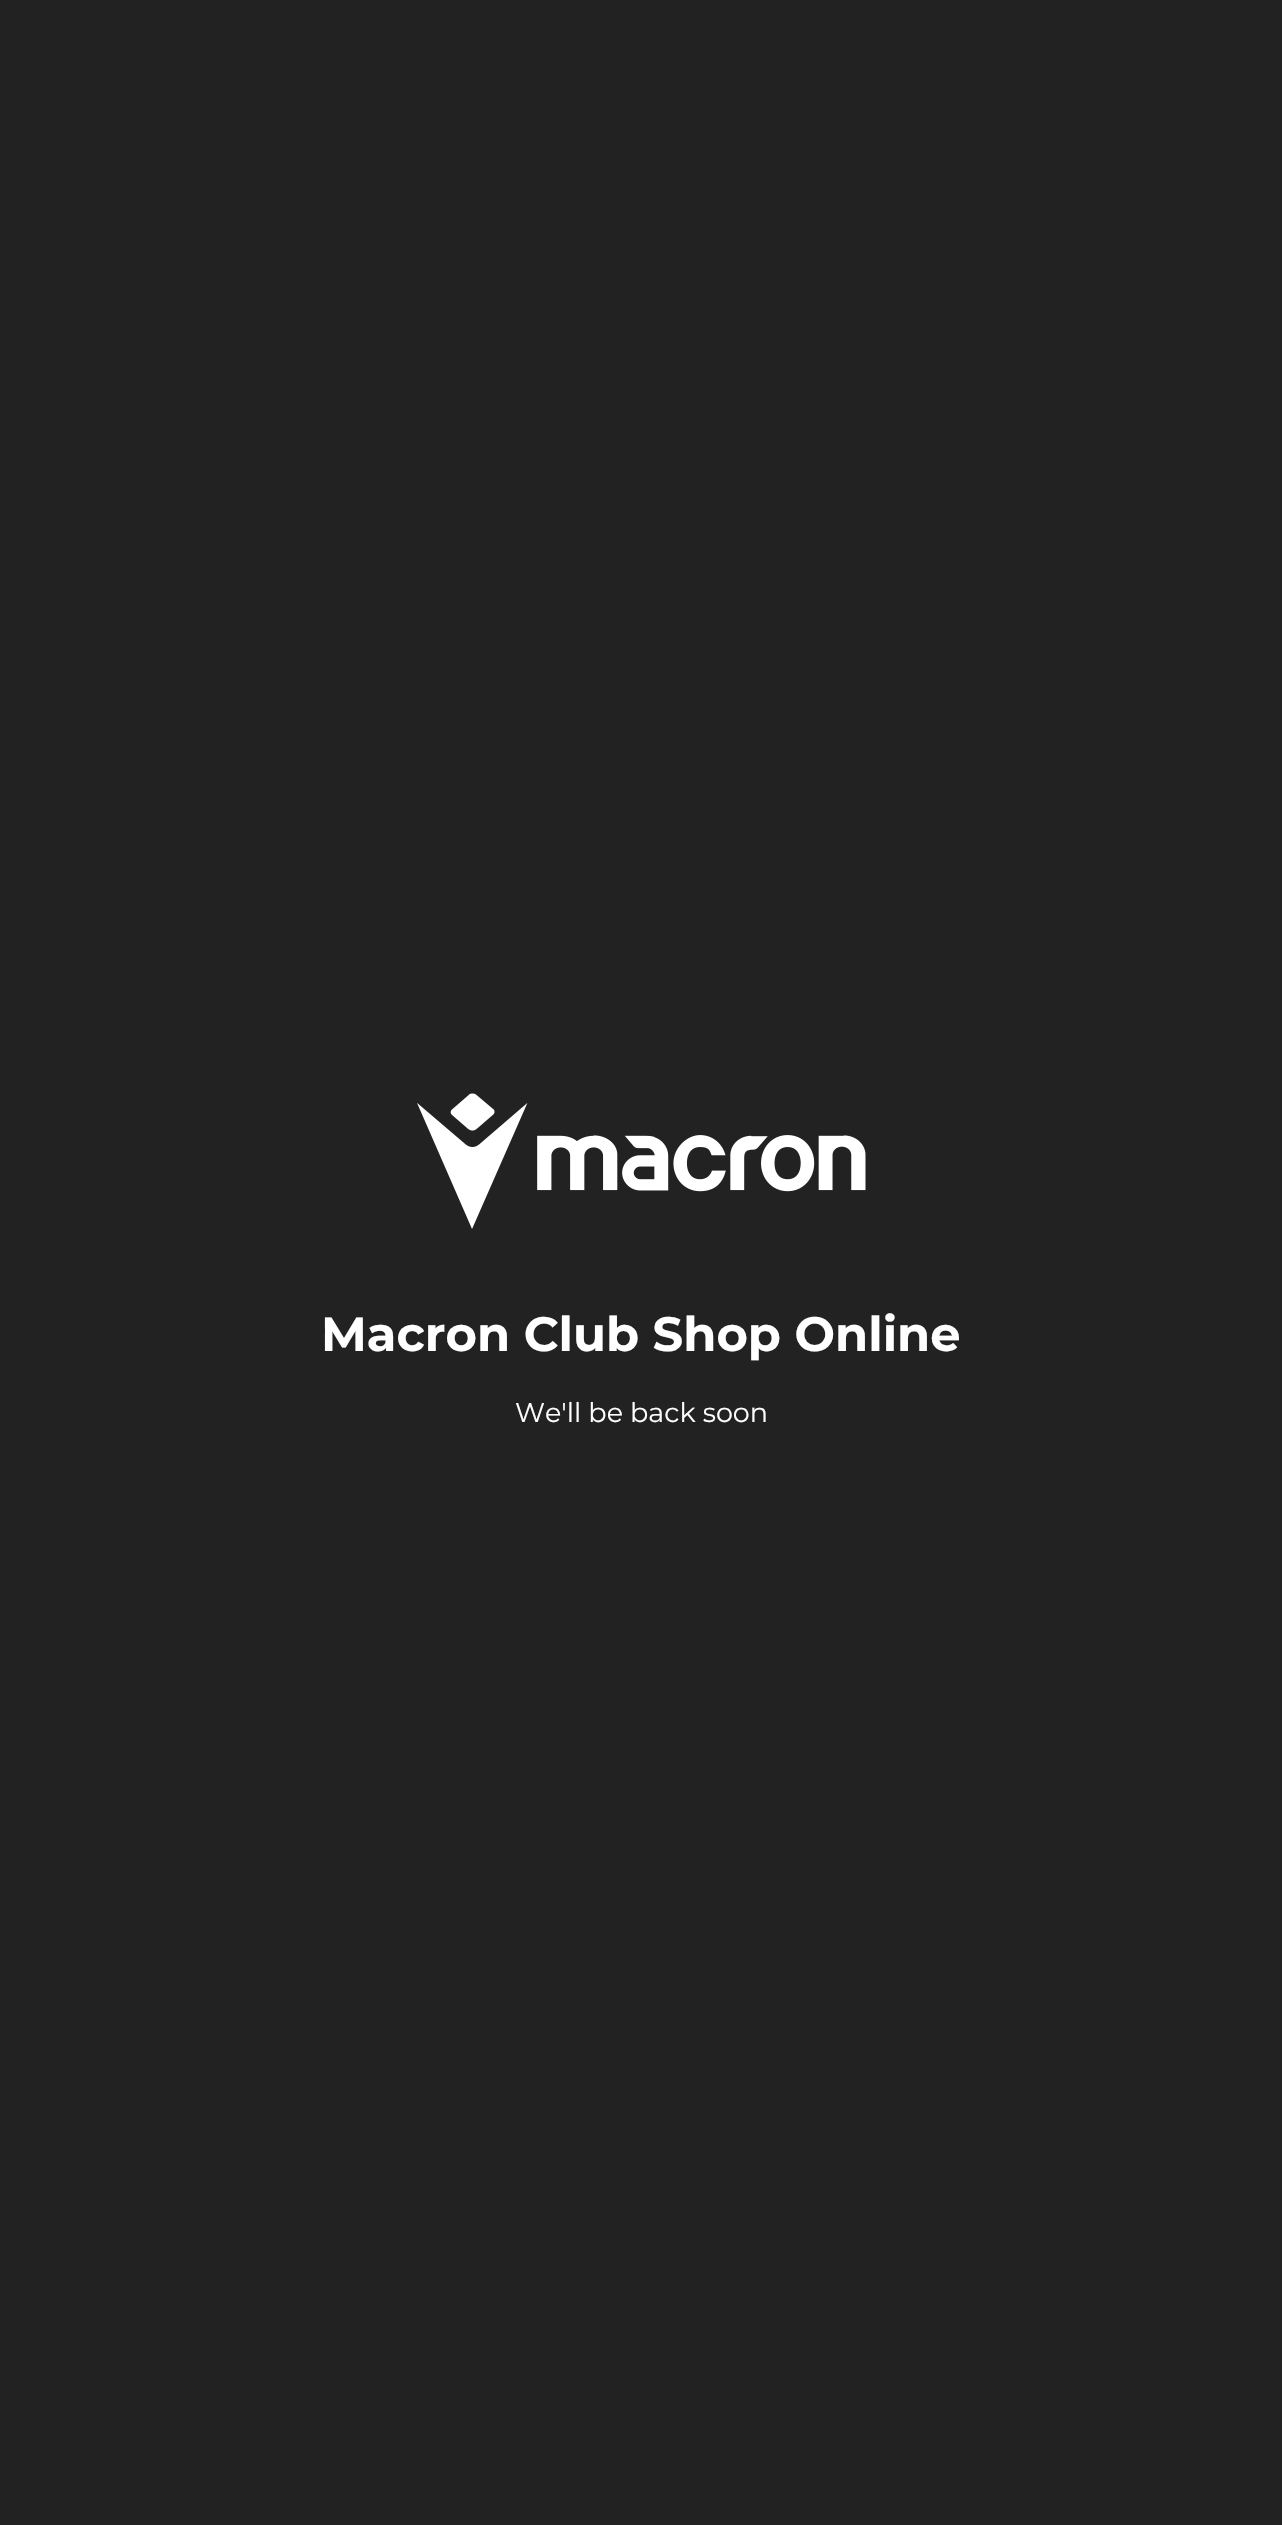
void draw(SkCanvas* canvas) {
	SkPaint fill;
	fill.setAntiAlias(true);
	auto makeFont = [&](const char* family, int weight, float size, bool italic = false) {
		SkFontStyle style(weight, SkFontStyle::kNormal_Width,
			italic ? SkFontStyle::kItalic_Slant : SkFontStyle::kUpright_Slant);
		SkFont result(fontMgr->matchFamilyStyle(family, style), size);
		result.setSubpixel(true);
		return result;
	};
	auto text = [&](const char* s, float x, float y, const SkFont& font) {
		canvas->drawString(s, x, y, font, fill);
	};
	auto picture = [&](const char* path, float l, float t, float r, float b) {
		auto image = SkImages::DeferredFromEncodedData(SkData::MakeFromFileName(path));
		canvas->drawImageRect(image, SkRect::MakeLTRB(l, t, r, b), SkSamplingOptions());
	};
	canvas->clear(0xFF222222);
	picture("image0.png", 417, 1093, 866, 1229);
	auto font1 = makeFont("Montserrat", 700, 48, true);
	fill.setColor(0xFFFFFFFF);
	text("Macron Club Shop Online", 321, 1351, font1);
	auto font2 = makeFont("Montserrat", 400, 27, true);
	text("We'll be back soon", 515, 1422, font2);
}
